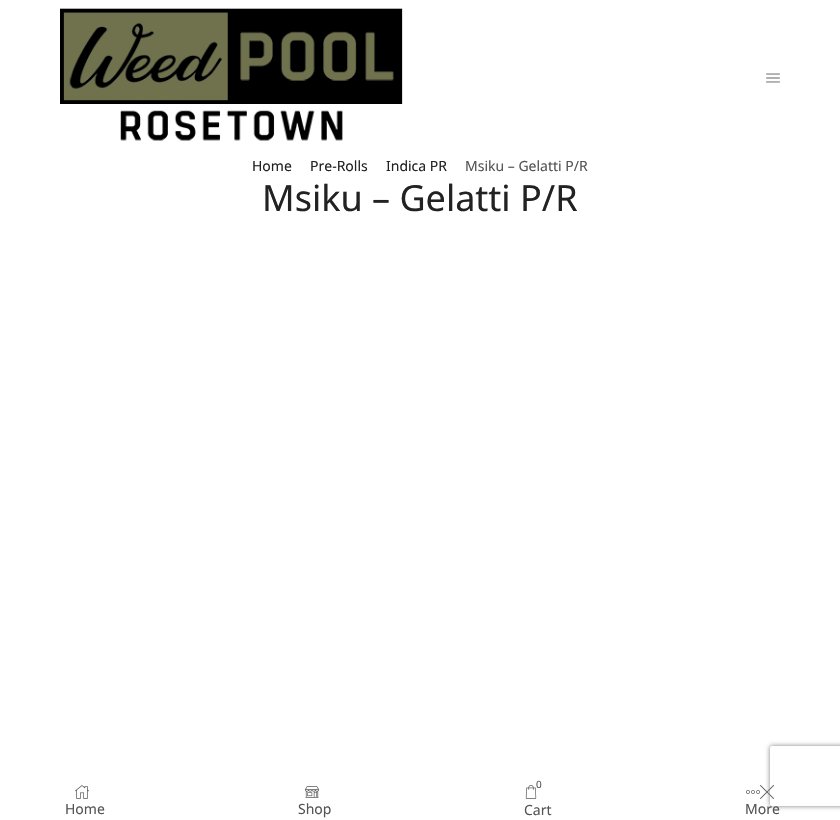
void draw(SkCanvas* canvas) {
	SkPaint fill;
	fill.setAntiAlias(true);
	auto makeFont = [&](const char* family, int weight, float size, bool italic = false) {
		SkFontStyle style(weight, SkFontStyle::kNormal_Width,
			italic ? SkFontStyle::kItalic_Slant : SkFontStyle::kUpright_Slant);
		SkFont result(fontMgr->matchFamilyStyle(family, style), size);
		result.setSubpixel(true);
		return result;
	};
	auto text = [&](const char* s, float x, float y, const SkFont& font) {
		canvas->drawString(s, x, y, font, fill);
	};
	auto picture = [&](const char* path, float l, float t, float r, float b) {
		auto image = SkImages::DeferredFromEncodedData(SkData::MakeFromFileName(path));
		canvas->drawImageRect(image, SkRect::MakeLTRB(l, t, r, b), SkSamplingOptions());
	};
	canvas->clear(0xFFFFFFFF);
	picture("image0.png", 60, 8, 403, 141);
	picture("image1.png", 766, 73, 780, 83);
	picture("image2.png", 75, 785, 89, 799);
	picture("image3.png", 305, 786, 319, 798);
	picture("image4.png", 525, 785, 537, 799);
	picture("image5.png", 746, 790, 760, 794);
	picture("image6.png", 760, 785, 774, 799);
	canvas->save();
	canvas->clipPath(SkPathBuilder(SkPathFillType::kEvenOdd).moveTo(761, 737).lineTo(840, 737).lineTo(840, 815).lineTo(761, 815).close().moveTo(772, 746).lineTo(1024, 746).cubicTo(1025, 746, 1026, 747, 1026, 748).lineTo(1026, 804).cubicTo(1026, 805, 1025, 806, 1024, 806).lineTo(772, 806).cubicTo(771, 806, 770, 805, 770, 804).lineTo(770, 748).cubicTo(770, 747, 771, 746, 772, 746).close().detach(), true);
	fill.setColor(0xFF808080);
	fill.setMaskFilter(SkMaskFilter::MakeBlur(kNormal_SkBlurStyle, 2.5f));
	canvas->drawRoundRect(SkRect::MakeLTRB(770, 746, 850, 806), 2, 2, fill);
	fill.setMaskFilter(nullptr);
	canvas->restore();
	auto font1 = makeFont("Noto Sans", 400, 14);
	fill.setColor(0xFF222222);
	text("Home", 252, 171, font1);
	text("Pre-Rolls", 310, 171, font1);
	text("Indica PR", 386, 171, font1);
	fill.setColor(0xFF555555);
	text("Msiku – Gelatti P/R", 465, 171, font1);
	auto font2 = makeFont("Noto Sans", 400, 36);
	fill.setColor(0xFF222222);
	text("Msiku – Gelatti P/R", 262, 211, font2);
	fill.setColor(0xFF555555);
	text("Home", 65, 814, font1);
	text("Shop", 298, 814, font1);
	auto font3 = makeFont("Noto Sans", 400, 10);
	text("0", 536, 788, font3);
	text("Cart", 524, 815, font1);
	text("More", 745, 814, font1);
}
